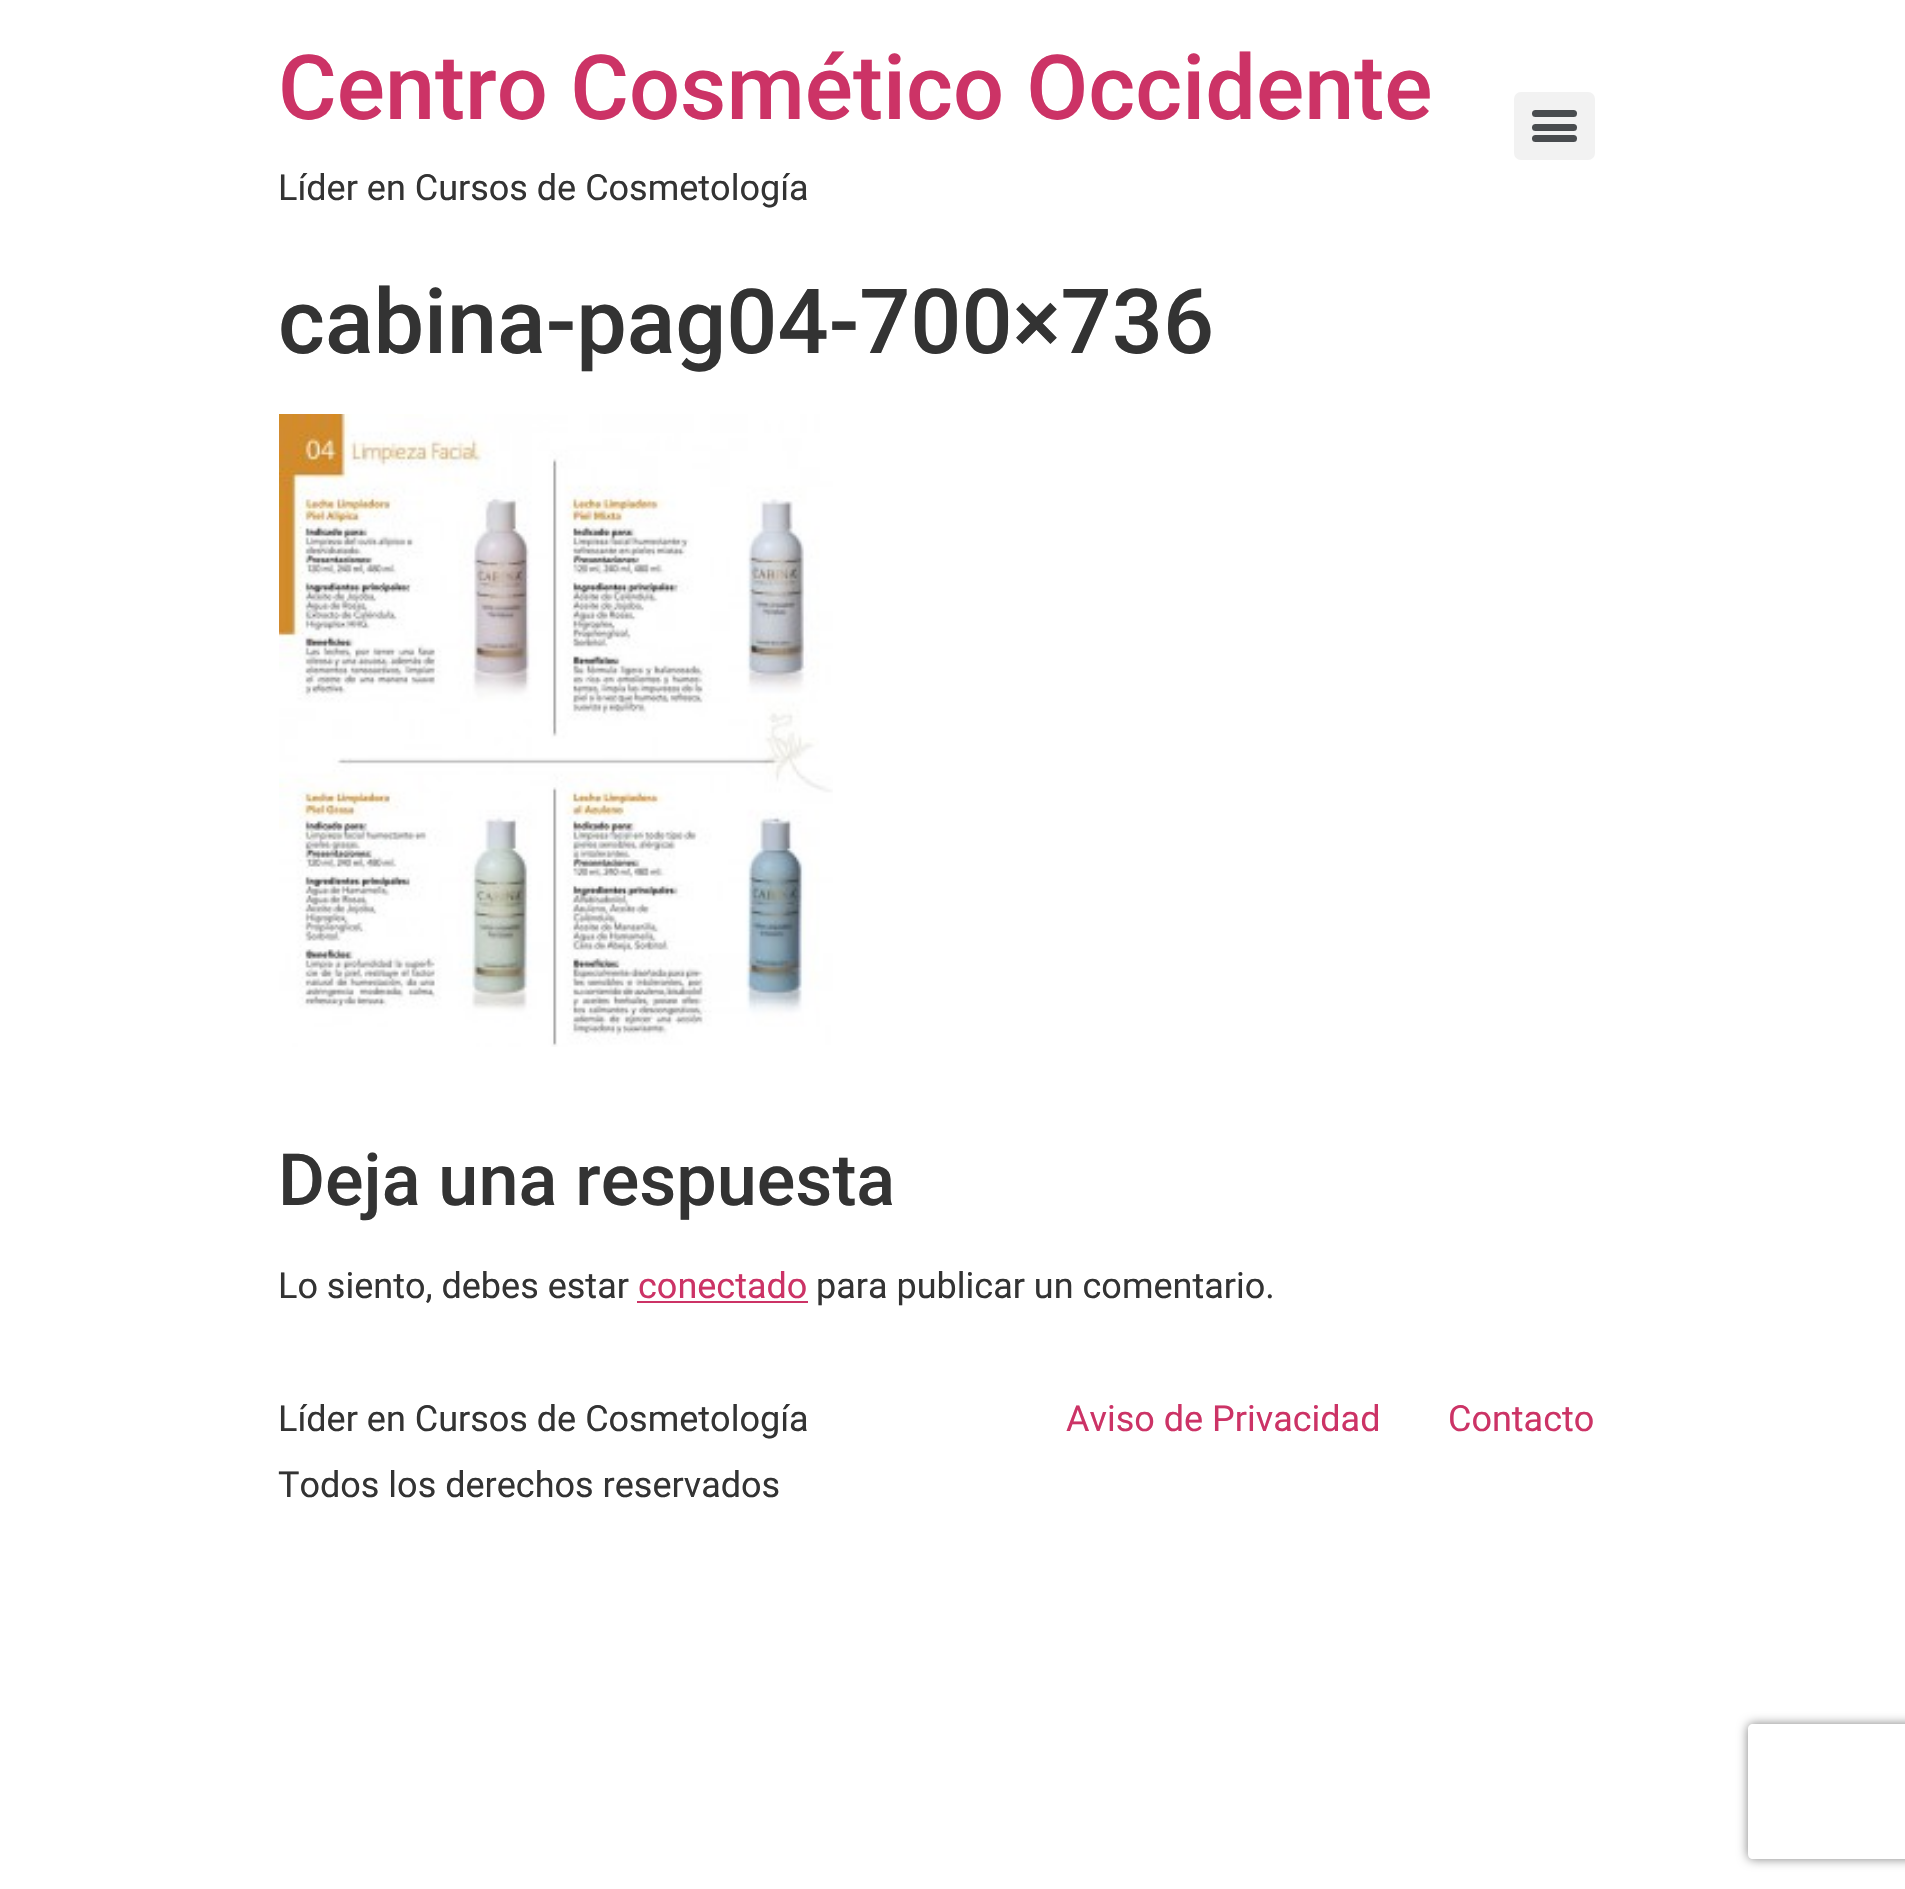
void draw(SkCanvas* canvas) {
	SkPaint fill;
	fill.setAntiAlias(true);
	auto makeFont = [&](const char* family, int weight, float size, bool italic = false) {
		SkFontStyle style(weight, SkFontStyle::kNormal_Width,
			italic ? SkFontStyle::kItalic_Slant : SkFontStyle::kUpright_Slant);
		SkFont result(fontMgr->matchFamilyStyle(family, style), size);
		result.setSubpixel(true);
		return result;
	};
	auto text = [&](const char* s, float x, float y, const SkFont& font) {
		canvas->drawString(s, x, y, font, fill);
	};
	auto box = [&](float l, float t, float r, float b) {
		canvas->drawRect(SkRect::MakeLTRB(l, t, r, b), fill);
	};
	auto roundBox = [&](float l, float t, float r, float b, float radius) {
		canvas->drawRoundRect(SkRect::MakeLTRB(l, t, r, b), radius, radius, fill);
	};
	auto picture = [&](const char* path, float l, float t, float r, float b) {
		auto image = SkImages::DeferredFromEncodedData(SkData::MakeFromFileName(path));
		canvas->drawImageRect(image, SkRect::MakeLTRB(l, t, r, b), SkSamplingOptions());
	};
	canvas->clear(0xFFFFFFFF);
	fill.setColor(0xFFF2F2F2);
	roundBox(1514, 92, 1595, 160, 7);
	fill.setColor(0xFF494C4F);
	roundBox(1532, 124, 1577, 131, 3.5f);
	roundBox(1532, 110, 1577, 117, 3.5f);
	roundBox(1532, 135, 1577, 142, 3.5f);
	picture("image0.png", 279, 414, 833, 1047);
	fill.setColor(0xFFCC3366);
	box(637, 1301, 808, 1303);
	canvas->save();
	canvas->clipPath(SkPathBuilder(SkPathFillType::kEvenOdd).moveTo(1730, 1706).lineTo(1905, 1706).lineTo(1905, 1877).lineTo(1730, 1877).close().moveTo(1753, 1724).lineTo(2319, 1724).cubicTo(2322, 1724, 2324, 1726, 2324, 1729).lineTo(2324, 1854).cubicTo(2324, 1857, 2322, 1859, 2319, 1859).lineTo(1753, 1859).cubicTo(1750, 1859, 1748, 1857, 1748, 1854).lineTo(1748, 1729).cubicTo(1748, 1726, 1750, 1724, 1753, 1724).close().detach(), true);
	fill.setColor(0xFF808080);
	fill.setMaskFilter(SkMaskFilter::MakeBlur(kNormal_SkBlurStyle, 5.5f));
	canvas->drawRoundRect(SkRect::MakeLTRB(1748, 1724, 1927, 1859), 5, 5, fill);
	fill.setMaskFilter(nullptr);
	canvas->restore();
	auto font1 = makeFont("Roboto", 500, 90);
	fill.setColor(0xFFCC3366);
	text("Centro Cosmético Occidente", 278, 119, font1);
	auto font2 = makeFont("Roboto", 400, 36);
	fill.setColor(0xFF333333);
	text("Líder en Cursos de Cosmetología", 278, 200, font2);
	text("cabina-pag04-700×736", 278, 353, font1);
	auto font3 = makeFont("Roboto", 500, 72);
	text("Deja una respuesta", 278, 1205, font3);
	text("Lo siento, debes estar", 278, 1298, font2);
	fill.setColor(0xFFCC3366);
	text("conectado", 638, 1298, font2);
	fill.setColor(0xFF333333);
	text("para publicar un comentario.", 816, 1298, font2);
	text("Líder en Cursos de Cosmetología", 278, 1431, font2);
	fill.setColor(0xFFCC3366);
	text("Aviso de Privacidad", 1066, 1431, font2);
	text("Contacto", 1448, 1431, font2);
	fill.setColor(0xFF333333);
	text("Todos los derechos reservados", 278, 1497, font2);
}
